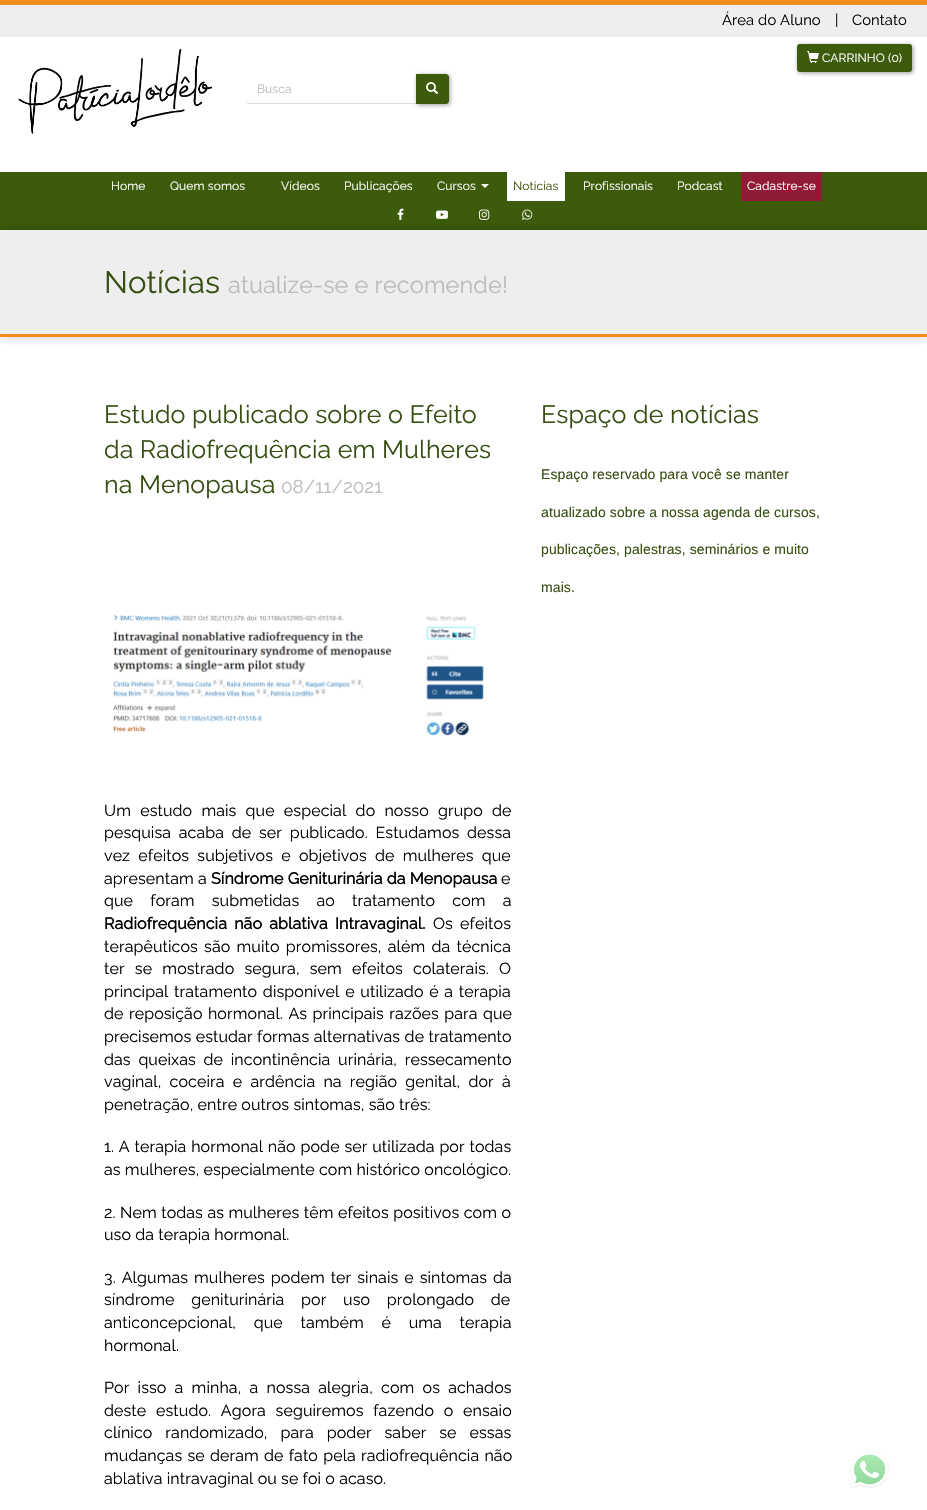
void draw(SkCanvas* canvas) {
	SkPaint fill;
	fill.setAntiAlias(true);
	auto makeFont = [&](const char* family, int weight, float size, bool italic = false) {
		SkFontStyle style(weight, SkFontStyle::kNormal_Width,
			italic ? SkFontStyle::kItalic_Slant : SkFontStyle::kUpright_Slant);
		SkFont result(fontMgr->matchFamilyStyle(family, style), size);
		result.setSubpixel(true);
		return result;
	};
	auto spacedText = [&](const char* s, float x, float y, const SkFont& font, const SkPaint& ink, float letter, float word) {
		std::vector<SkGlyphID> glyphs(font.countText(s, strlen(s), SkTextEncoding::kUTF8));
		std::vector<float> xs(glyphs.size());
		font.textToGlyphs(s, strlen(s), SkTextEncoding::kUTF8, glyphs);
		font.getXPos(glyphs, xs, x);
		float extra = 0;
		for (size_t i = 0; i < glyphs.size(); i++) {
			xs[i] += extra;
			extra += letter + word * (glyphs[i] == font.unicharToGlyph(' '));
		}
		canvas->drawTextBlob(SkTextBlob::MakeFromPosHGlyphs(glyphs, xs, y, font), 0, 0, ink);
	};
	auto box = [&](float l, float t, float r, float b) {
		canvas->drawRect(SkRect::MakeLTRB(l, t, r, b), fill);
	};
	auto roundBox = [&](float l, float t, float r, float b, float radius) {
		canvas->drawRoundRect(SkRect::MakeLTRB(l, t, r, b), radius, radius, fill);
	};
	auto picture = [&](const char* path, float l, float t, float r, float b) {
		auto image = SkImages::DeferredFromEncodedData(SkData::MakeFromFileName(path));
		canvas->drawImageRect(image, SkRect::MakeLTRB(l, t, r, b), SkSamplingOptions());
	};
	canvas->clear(0xFFFFFFFF);
	fill.setColor(0xFF3C5B0B);
	box(0, 172, 927, 230);
	fill.setColor(0xFFEEEEEE);
	box(0, 5, 927, 37);
	fill.setColor(0xFFF48C1D);
	box(0, 0, 927, 5);
	picture("image0.png", 18, 49, 212, 134);
	fill.setColor(0x66000000);
	fill.setMaskFilter(SkMaskFilter::MakeBlur(kNormal_SkBlurStyle, 2));
	canvas->drawRoundRect(SkRect::MakeLTRB(798, 45, 913, 73), 3, 3, fill);
	fill.setMaskFilter(nullptr);
	fill.setColor(0xFF3C5B0B);
	roundBox(797, 44, 912, 72, 3);
	picture("image1.png", 807, 51, 819, 63);
	fill.setColor(0xFFDDDDDD);
	canvas->drawPath(SkPathBuilder().moveTo(247, 100).cubicTo(247, 102, 247, 104, 249, 104).lineTo(417, 104).lineTo(417, 103).lineTo(250, 103).cubicTo(248, 103, 247, 102, 247, 100).close().detach(), fill);
	fill.setColor(0x66000000);
	fill.setMaskFilter(SkMaskFilter::MakeBlur(kNormal_SkBlurStyle, 2));
	canvas->drawRoundRect(SkRect::MakeLTRB(417, 75, 450, 105), 3, 3, fill);
	fill.setMaskFilter(nullptr);
	fill.setColor(0xFF3C5B0B);
	canvas->drawPath(SkPathBuilder().moveTo(416, 74).lineTo(446, 74).cubicTo(447.5f, 74, 449, 75.5f, 449, 77).lineTo(449, 101).cubicTo(449, 102.5f, 447.5f, 104, 446, 104).lineTo(416, 104).close().detach(), fill);
	picture("image2.png", 426, 82, 438, 94);
	fill.setColor(0xFFFFFFFF);
	canvas->drawPath(SkPathBuilder().moveTo(481, 184).lineTo(489, 184).lineTo(485, 188).close().detach(), fill);
	box(507, 172, 565, 201);
	fill.setColor(0xFF901B34);
	box(741, 172, 822, 201);
	fill.setColor(0x33000000);
	fill.setMaskFilter(SkMaskFilter::MakeBlur(kNormal_SkBlurStyle, 5));
	canvas->drawRect(SkRect::MakeLTRB(0, 230, 927, 337), fill);
	fill.setMaskFilter(nullptr);
	picture("image3.png", 397, 208, 404, 220);
	picture("image4.png", 436, 210, 448, 219);
	picture("image5.png", 479, 209, 490, 220);
	picture("image6.png", 522, 209, 533, 220);
	fill.setColor(0xFFEEEEEE);
	box(0, 230, 927, 334);
	fill.setColor(0xFFF48C1D);
	box(0, 334, 927, 337);
	picture("image7.png", 113, 615, 484, 736);
	picture("image8.png", 850, 1451, 889, 1488);
	auto font1 = makeFont("Raleway", 100, 14.75f);
	fill.setColor(0xFF000000);
	spacedText("Área do Aluno", 722, 25, font1, fill, 0.1f, 0);
	spacedText("|", 835, 25, font1, fill, 0.1f, 0);
	spacedText("Contato", 852, 25, font1, fill, 0.1f, 0);
	auto font2 = makeFont("Raleway", 100, 12);
	fill.setColor(0xFFFFFFFF);
	spacedText("CARRINHO (0)", 822, 62, font2, fill, 0.1f, 0);
	fill.setColor(0xFFBBBBBB);
	spacedText("Busca", 257, 93, font2, fill, 0.1f, 0);
	fill.setColor(0xFFFFFFFF);
	spacedText("Home", 111, 190, font2, fill, 0.1f, 0);
	spacedText("Quem somos", 170, 190, font2, fill, 0.1f, 0);
	spacedText("Vídeos", 281, 190, font2, fill, 0.1f, 0);
	spacedText("Publicações", 344, 190, font2, fill, 0.1f, 0);
	spacedText("Cursos", 437, 190, font2, fill, 0.1f, 0);
	fill.setColor(0xFF3C5B0B);
	spacedText("Notícias", 513, 190, font2, fill, 0.1f, 0);
	fill.setColor(0xFFFFFFFF);
	spacedText("Profissionais", 583, 190, font2, fill, 0.1f, 0);
	spacedText("Podcast", 677, 190, font2, fill, 0.1f, 0);
	spacedText("Cadastre-se", 747, 190, font2, fill, 0.1f, 0);
	auto font3 = makeFont("Raleway", 100, 31);
	fill.setColor(0xFF374F13);
	spacedText("Notícias", 104, 293, font3, fill, 0.1f, 0);
	auto font4 = makeFont("Raleway", 100, 23.5f);
	fill.setColor(0xFFBBBBBB);
	spacedText("atualize-se e recomende!", 228, 293, font4, fill, 0.1f, 0);
	auto font5 = makeFont("Raleway", 100, 25);
	fill.setColor(0xFF374F13);
	spacedText("Estudo publicado sobre o Efeito", 104, 423, font5, fill, 0.1f, 0);
	spacedText("da Radiofrequência em Mulheres", 104, 458, font5, fill, 0.1f, 0);
	spacedText("na Menopausa", 104, 493, font5, fill, 0.1f, 0);
	auto font6 = makeFont("Raleway", 100, 18.75f);
	fill.setColor(0xFFBBBBBB);
	spacedText("08/11/2021", 281, 493, font6, fill, 0.1f, 0);
	auto font7 = makeFont("Raleway", 100, 16);
	fill.setColor(0xFF000000);
	spacedText("Um estudo mais que especial do nosso grupo de", 104, 816, font7, fill, 0.1f, 5);
	spacedText("pesquisa acaba de ser publicado. Estudamos dessa", 104, 838, font7, fill, 0.1f, 3.5f);
	spacedText("vez efeitos subjetivos e objetivos de mulheres que", 104, 861, font7, fill, 0.1f, 4);
	spacedText("apresentam a", 104, 884, font7, fill, 0.1f, 0);
	auto font8 = makeFont("Raleway", 700, 16);
	spacedText("Síndrome Geniturinária da Menopausa", 211, 884, font8, fill, 0.1f, 0);
	spacedText("e", 501, 884, font7, fill, 0.1f, 0);
	spacedText("que foram submetidas ao tratamento com a", 104, 906, font7, fill, 0.1f, 13);
	spacedText("Radiofrequência não ablativa Intravaginal.", 104, 929, font8, fill, 0.1f, 3);
	spacedText("Os efeitos", 433, 929, font7, fill, 0.1f, 3);
	spacedText("terapêuticos são muito promissores, além da técnica", 104, 952, font7, fill, 0.1f, 2);
	spacedText("ter se mostrado segura, sem efeitos colaterais. O", 104, 974, font7, fill, 0.1f, 6);
	spacedText("principal tratamento disponível e utilizado é a terapia", 104, 997, font7, fill, 0.1f, 1.5f);
	spacedText("de reposição hormonal. As principais razões para que", 104, 1019, font7, fill, 0.1f, 1.25f);
	spacedText("precisemos estudar formas alternativas de tratamento", 104, 1042, font7, fill, 0.1f, 0.25f);
	spacedText("das queixas de incontinência urinária, ressecamento", 104, 1065, font7, fill, 0.1f, 3.5f);
	spacedText("vaginal, coceira e ardência na região genital, dor à", 104, 1087, font7, fill, 0.1f, 4);
	spacedText("penetração, entre outros sintomas, são três:", 104, 1110, font7, fill, 0.1f, 0);
	spacedText("1. A terapia hormonal não pode ser utilizada por todas", 104, 1152, font7, fill, 0.1f, 0.6f);
	spacedText("as mulheres, especialmente com histórico oncológico.", 104, 1175, font7, fill, 0.1f, 0);
	spacedText("2. Nem todas as mulheres têm efeitos positivos com o", 104, 1218, font7, fill, 0.1f, 0.25f);
	spacedText("uso da terapia hormonal.", 104, 1240, font7, fill, 0.1f, 0);
	spacedText("3. Algumas mulheres podem ter sinais e sintomas da", 104, 1283, font7, fill, 0.1f, 1.75f);
	spacedText("síndrome geniturinária por uso prolongado de", 104, 1305, font7, fill, 0.1f, 12.5f);
	spacedText("anticoncepcional, que também é uma terapia", 104, 1328, font7, fill, 0.1f, 13.5f);
	spacedText("hormonal.", 104, 1351, font7, fill, 0.1f, 0);
	spacedText("Por isso a minha, a nossa alegria, com os achados", 104, 1393, font7, fill, 0.1f, 4);
	spacedText("deste estudo. Agora seguiremos fazendo o ensaio", 104, 1416, font7, fill, 0.1f, 5.5f);
	spacedText("clínico randomizado, para poder saber se essas", 104, 1438, font7, fill, 0.1f, 8.75f);
	spacedText("mudanças se deram de fato pela radiofrequência não", 104, 1461, font7, fill, 0.1f, 1);
	spacedText("ablativa intravaginal ou se foi o acaso.", 104, 1484, font7, fill, 0.1f, 0);
	fill.setColor(0xFF374F13);
	spacedText("Espaço de notícias", 541, 423, font5, fill, 0.1f, 0);
	auto font9 = makeFont("Liberation Sans", 400, 14);
	spacedText("Espaço reservado para você se manter", 541, 479, font9, fill, 0.1f, 0);
	spacedText("atualizado sobre a nossa agenda de cursos,", 541, 517, font9, fill, 0.1f, 0);
	spacedText("publicações, palestras, seminários e muito", 541, 554, font9, fill, 0.1f, 0);
	spacedText("mais.", 541, 592, font9, fill, 0.1f, 0);
}
